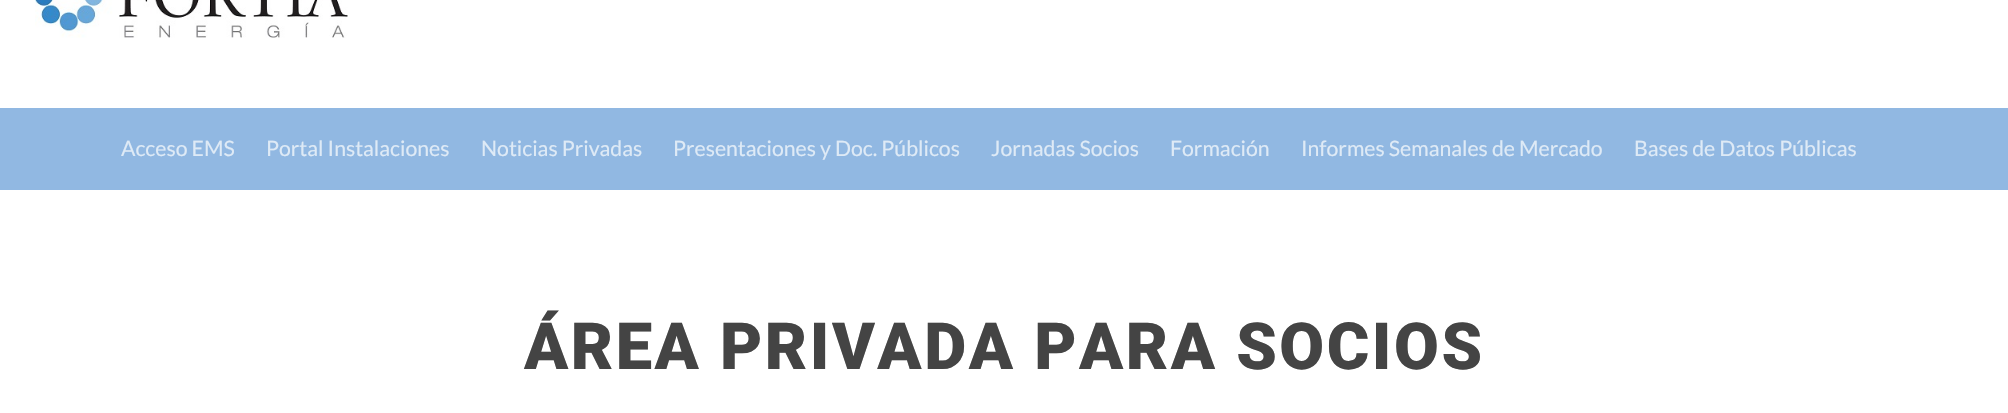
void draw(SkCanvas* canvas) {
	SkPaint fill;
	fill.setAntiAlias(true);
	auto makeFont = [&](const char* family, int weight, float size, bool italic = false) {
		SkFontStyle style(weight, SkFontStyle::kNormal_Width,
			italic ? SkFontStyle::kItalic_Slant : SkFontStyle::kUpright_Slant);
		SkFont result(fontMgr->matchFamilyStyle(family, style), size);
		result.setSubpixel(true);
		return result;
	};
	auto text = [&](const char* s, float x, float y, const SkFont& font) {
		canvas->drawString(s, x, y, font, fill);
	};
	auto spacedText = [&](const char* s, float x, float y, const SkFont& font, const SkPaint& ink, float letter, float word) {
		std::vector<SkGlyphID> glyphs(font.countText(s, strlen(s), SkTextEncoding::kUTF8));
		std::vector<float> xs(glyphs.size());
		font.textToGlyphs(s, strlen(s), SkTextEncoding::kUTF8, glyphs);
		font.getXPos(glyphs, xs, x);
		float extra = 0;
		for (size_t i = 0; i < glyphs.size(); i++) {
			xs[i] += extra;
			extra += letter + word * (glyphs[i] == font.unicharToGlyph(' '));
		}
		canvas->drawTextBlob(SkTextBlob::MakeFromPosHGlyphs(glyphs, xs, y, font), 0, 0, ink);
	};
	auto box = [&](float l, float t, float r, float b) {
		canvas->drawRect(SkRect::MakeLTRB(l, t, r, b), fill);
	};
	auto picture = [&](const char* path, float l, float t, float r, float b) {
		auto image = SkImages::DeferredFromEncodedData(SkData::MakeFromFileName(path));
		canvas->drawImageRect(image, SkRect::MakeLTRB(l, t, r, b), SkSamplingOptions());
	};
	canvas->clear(0xFFFFFFFF);
	picture("image0.png", 35, 0, 348, 38);
	fill.setColor(0xFF91B8E2);
	box(0, 108, 2008, 190);
	auto font1 = makeFont("Lato", 400, 21.25f);
	fill.setColor(0xFFDEEAF6);
	text("Acceso EMS", 121, 156, font1);
	text("Portal Instalaciones", 266, 156, font1);
	text("Noticias Privadas", 481, 156, font1);
	text("Presentaciones y Doc. Públicos", 673, 156, font1);
	text("Jornadas Socios", 991, 156, font1);
	text("Formación", 1170, 156, font1);
	text("Informes Semanales de Mercado", 1301, 156, font1);
	text("Bases de Datos Públicas", 1634, 156, font1);
	auto font2 = makeFont("Roboto", 900, 65);
	fill.setColor(0xFF444444);
	spacedText("ÁREA PRIVADA PARA SOCIOS", 524, 369, font2, fill, 2.5f, 0);
}
